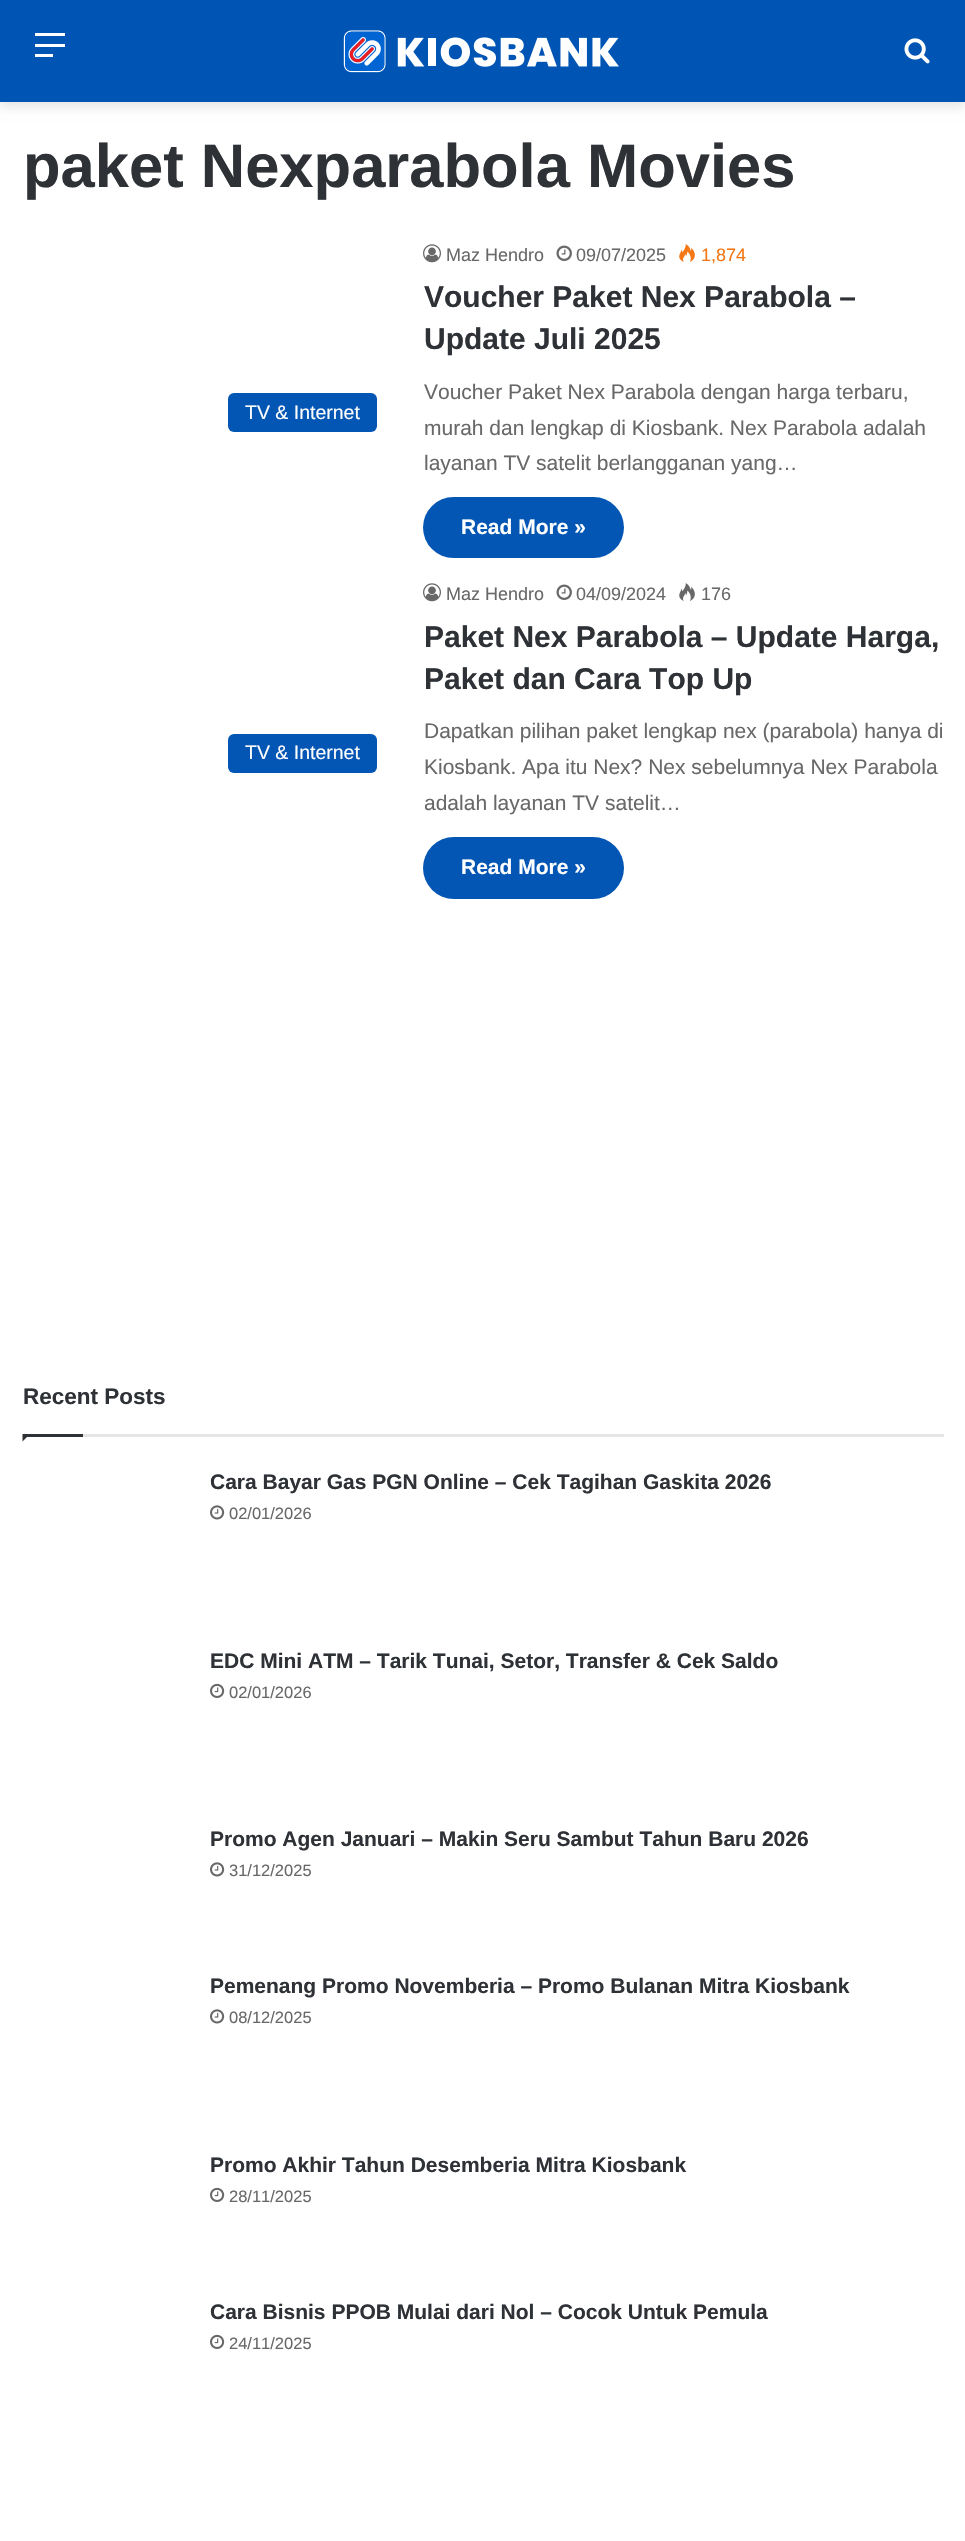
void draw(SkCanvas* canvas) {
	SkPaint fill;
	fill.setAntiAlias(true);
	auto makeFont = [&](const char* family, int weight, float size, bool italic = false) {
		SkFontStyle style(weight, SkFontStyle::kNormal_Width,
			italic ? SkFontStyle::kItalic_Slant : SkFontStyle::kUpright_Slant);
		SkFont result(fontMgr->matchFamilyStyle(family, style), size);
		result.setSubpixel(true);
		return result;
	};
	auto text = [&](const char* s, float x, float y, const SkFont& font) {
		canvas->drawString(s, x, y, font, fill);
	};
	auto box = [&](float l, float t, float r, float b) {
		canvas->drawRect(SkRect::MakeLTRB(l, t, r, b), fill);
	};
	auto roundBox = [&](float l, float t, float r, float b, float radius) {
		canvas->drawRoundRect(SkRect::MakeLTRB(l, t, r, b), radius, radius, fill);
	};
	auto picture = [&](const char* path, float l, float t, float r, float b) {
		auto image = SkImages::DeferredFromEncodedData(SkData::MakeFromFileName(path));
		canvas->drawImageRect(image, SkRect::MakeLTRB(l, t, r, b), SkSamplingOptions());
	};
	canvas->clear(0xFFFFFFFF);
	fill.setColor(0x1A000000);
	fill.setMaskFilter(SkMaskFilter::MakeBlur(kNormal_SkBlurStyle, 5));
	canvas->drawRect(SkRect::MakeLTRB(0, 5, 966, 107), fill);
	fill.setMaskFilter(nullptr);
	fill.setColor(0xFF0054B3);
	box(0, 0, 965, 102);
	fill.setColor(0xFFFFFFFF);
	box(35, 44, 65, 47);
	box(35, 33, 65, 36);
	box(35, 54, 53, 57);
	picture("image0.png", 343, 30, 619, 73);
	picture("image1.png", 904, 38, 930, 64);
	fill.setColor(0xFF0356B4);
	roundBox(228, 393, 377, 432, 6);
	picture("image2.png", 423, 244, 441, 263);
	picture("image3.png", 556, 245, 572, 261);
	picture("image4.png", 679, 244, 695, 262);
	roundBox(423, 497, 624, 558, 30.5f);
	roundBox(228, 734, 377, 773, 6);
	picture("image2.png", 423, 583, 441, 602);
	picture("image3.png", 556, 584, 572, 600);
	picture("image5.png", 679, 583, 695, 601);
	roundBox(423, 837, 624, 899, 31);
	fill.setColor(0xFFE6E6E6);
	box(83, 1434, 944, 1437);
	fill.setColor(0xFF2E3136);
	canvas->drawPath(SkPathBuilder().moveTo(22.5f, 1434).lineTo(30, 1434).lineTo(22.5f, 1441.5f).close().detach(), fill);
	box(23, 1434, 83, 1437);
	picture("image6.png", 210, 1505, 225, 1520);
	picture("image7.png", 210, 1683, 225, 1698);
	picture("image6.png", 210, 1862, 225, 1877);
	picture("image6.png", 210, 2009, 225, 2024);
	picture("image7.png", 210, 2187, 225, 2202);
	picture("image7.png", 210, 2334, 225, 2349);
	auto font1 = makeFont("Liberation Sans", 700, 61.5f);
	text("paket Nexparabola Movies", 23, 187, font1);
	auto font2 = makeFont("Liberation Sans", 400, 19.5f);
	fill.setColor(0xFFFFFFFF);
	text("TV & Internet", 245, 419, font2);
	auto font3 = makeFont("Liberation Sans", 400, 18);
	fill.setColor(0xFF686868);
	text("Maz Hendro", 446, 261, font3);
	text("09/07/2025", 576, 261, font3);
	fill.setColor(0xFFF47614);
	text("1,874", 701, 261, font3);
	auto font4 = makeFont("Liberation Sans", 700, 30);
	fill.setColor(0xFF2E3136);
	text("Voucher Paket Nex Parabola –", 424, 307, font4);
	text("Update Juli 2025", 424, 349, font4);
	auto font5 = makeFont("Liberation Sans", 400, 21);
	fill.setColor(0xFF686868);
	text("Voucher Paket Nex Parabola dengan harga terbaru,", 424, 399, font5);
	text("murah dan lengkap di Kiosbank. Nex Parabola adalah", 424, 435, font5);
	text("layanan TV satelit berlangganan yang…", 424, 470, font5);
	auto font6 = makeFont("Liberation Sans", 700, 21);
	fill.setColor(0xFFFFFFFF);
	text("Read More »", 461, 534, font6);
	text("TV & Internet", 245, 759, font2);
	fill.setColor(0xFF686868);
	text("Maz Hendro", 446, 600, font3);
	text("04/09/2024", 576, 600, font3);
	text("176", 701, 600, font3);
	fill.setColor(0xFF2E3136);
	text("Paket Nex Parabola – Update Harga,", 424, 647, font4);
	text("Paket dan Cara Top Up", 424, 689, font4);
	fill.setColor(0xFF686868);
	text("Dapatkan pilihan paket lengkap nex (parabola) hanya di", 424, 738, font5);
	text("Kiosbank. Apa itu Nex? Nex sebelumnya Nex Parabola", 424, 774, font5);
	text("adalah layanan TV satelit…", 424, 810, font5);
	fill.setColor(0xFFFFFFFF);
	text("Read More »", 461, 874, font6);
	auto font7 = makeFont("Liberation Sans", 700, 22.5f);
	fill.setColor(0xFF2E3136);
	text("Recent Posts", 23, 1404, font7);
	text("Cara Bayar Gas PGN Online – Cek Tagihan Gaskita 2026", 210, 1489, font6);
	auto font8 = makeFont("Liberation Sans", 400, 16.5f);
	fill.setColor(0xFF686868);
	text("02/01/2026", 229, 1519, font8);
	fill.setColor(0xFF2E3136);
	text("EDC Mini ATM – Tarik Tunai, Setor, Transfer & Cek Saldo", 210, 1668, font6);
	fill.setColor(0xFF686868);
	text("02/01/2026", 229, 1698, font8);
	fill.setColor(0xFF2E3136);
	text("Promo Agen Januari – Makin Seru Sambut Tahun Baru 2026", 210, 1846, font6);
	fill.setColor(0xFF686868);
	text("31/12/2025", 229, 1876, font8);
	fill.setColor(0xFF2E3136);
	text("Pemenang Promo Novemberia – Promo Bulanan Mitra Kiosbank", 210, 1993, font6);
	fill.setColor(0xFF686868);
	text("08/12/2025", 229, 2023, font8);
	fill.setColor(0xFF2E3136);
	text("Promo Akhir Tahun Desemberia Mitra Kiosbank", 210, 2172, font6);
	fill.setColor(0xFF686868);
	text("28/11/2025", 229, 2202, font8);
	fill.setColor(0xFF2E3136);
	text("Cara Bisnis PPOB Mulai dari Nol – Cocok Untuk Pemula", 210, 2319, font6);
	fill.setColor(0xFF686868);
	text("24/11/2025", 229, 2349, font8);
}
